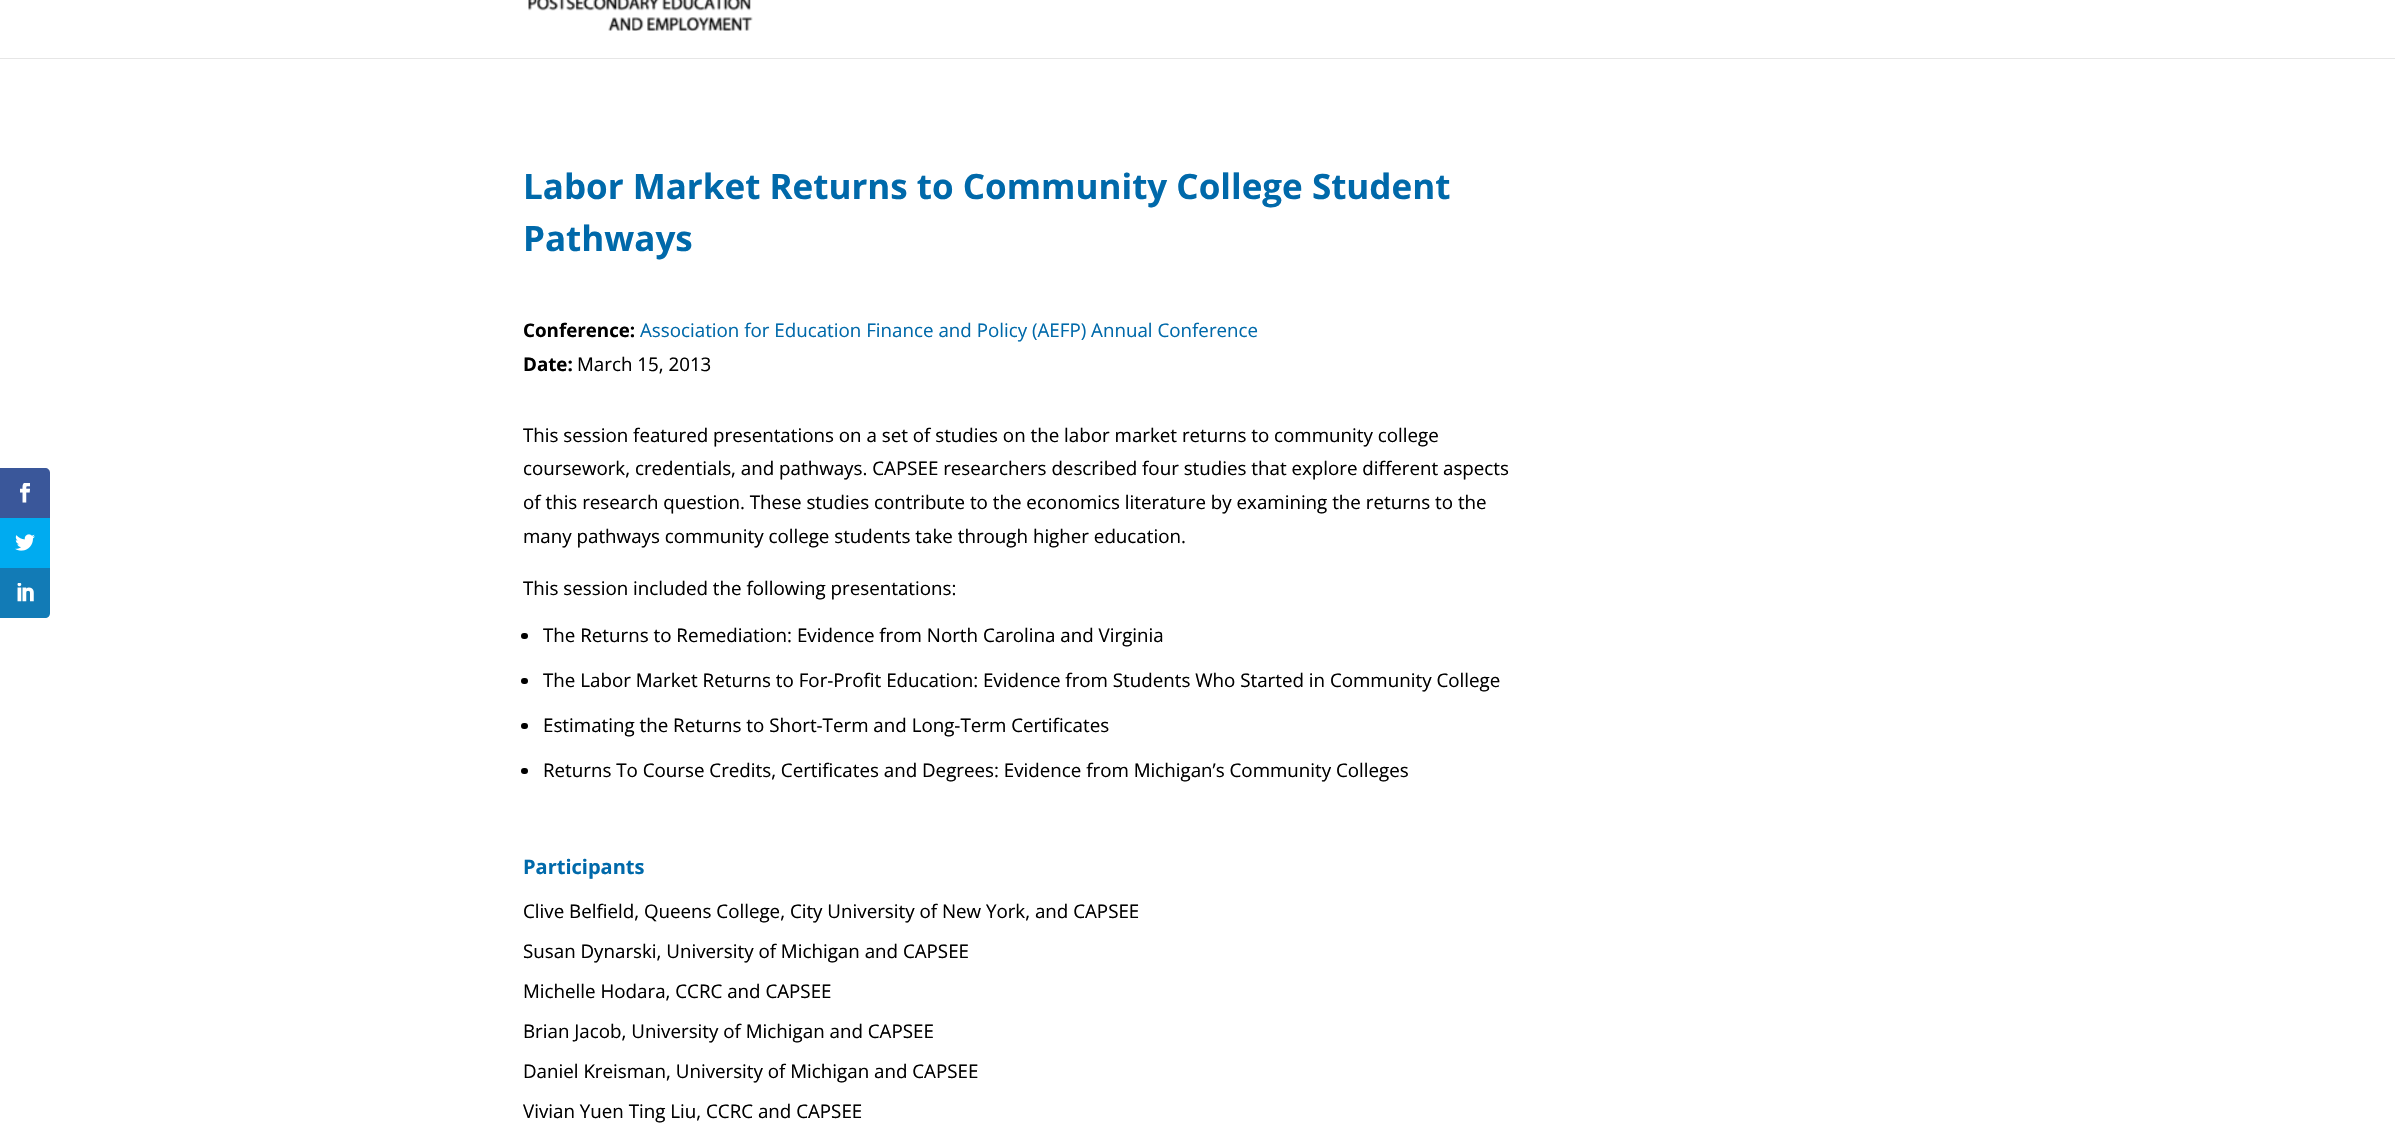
void draw(SkCanvas* canvas) {
	SkPaint fill;
	fill.setAntiAlias(true);
	auto makeFont = [&](const char* family, int weight, float size, bool italic = false) {
		SkFontStyle style(weight, SkFontStyle::kNormal_Width,
			italic ? SkFontStyle::kItalic_Slant : SkFontStyle::kUpright_Slant);
		SkFont result(fontMgr->matchFamilyStyle(family, style), size);
		result.setSubpixel(true);
		return result;
	};
	auto text = [&](const char* s, float x, float y, const SkFont& font) {
		canvas->drawString(s, x, y, font, fill);
	};
	auto box = [&](float l, float t, float r, float b) {
		canvas->drawRect(SkRect::MakeLTRB(l, t, r, b), fill);
	};
	auto roundBox = [&](float l, float t, float r, float b, float radius) {
		canvas->drawRoundRect(SkRect::MakeLTRB(l, t, r, b), radius, radius, fill);
	};
	auto picture = [&](const char* path, float l, float t, float r, float b) {
		auto image = SkImages::DeferredFromEncodedData(SkData::MakeFromFileName(path));
		canvas->drawImageRect(image, SkRect::MakeLTRB(l, t, r, b), SkSamplingOptions());
	};
	canvas->clear(0xFFFFFFFF);
	fill.setColor(0xFF3A579A);
	canvas->drawPath(SkPathBuilder().moveTo(0, 468).lineTo(45, 468).cubicTo(48, 468, 50, 470, 50, 473).lineTo(50, 518).lineTo(0, 518).close().detach(), fill);
	picture("image0.png", 20, 483, 30, 503);
	fill.setColor(0xFF00ABF0);
	box(0, 518, 50, 568);
	picture("image1.png", 15, 534, 35, 551);
	fill.setColor(0xFF127BB6);
	canvas->drawPath(SkPathBuilder().moveTo(0, 568).lineTo(50, 568).lineTo(50, 613).cubicTo(50, 616, 48, 618, 45, 618).lineTo(0, 618).close().detach(), fill);
	picture("image2.png", 17, 583, 34, 602);
	fill.setColor(0xFFE6E6E6);
	box(0, 58, 2395, 59);
	picture("image3.png", 528, 0, 753, 31);
	fill.setColor(0xFF000000);
	roundBox(521, 633, 528, 639, 3);
	roundBox(521, 678, 528, 684, 3);
	roundBox(521, 723, 528, 729, 3);
	roundBox(521, 768, 528, 774, 3);
	auto font1 = makeFont("Open Sans", 700, 35);
	fill.setColor(0xFF0069AA);
	text("Labor Market Returns to Community College Student", 523, 199, font1);
	text("Pathways", 523, 251, font1);
	auto font2 = makeFont("Open Sans", 700, 18.75f);
	fill.setColor(0xFF000000);
	text("Conference:", 523, 337, font2);
	auto font3 = makeFont("Open Sans", 400, 18.75f);
	fill.setColor(0xFF0069AA);
	text("Association for Education Finance and Policy (AEFP) Annual Conference", 640, 337, font3);
	fill.setColor(0xFF000000);
	text("Date:", 523, 371, font2);
	text("March 15, 2013", 577, 371, font3);
	text("This session featured presentations on a set of studies on the labor market returns to community college", 523, 442, font3);
	text("coursework, credentials, and pathways. CAPSEE researchers described four studies that explore different aspects", 523, 475, font3);
	text("of this research question. These studies contribute to the economics literature by examining the returns to the", 523, 509, font3);
	text("many pathways community college students take through higher education.", 523, 543, font3);
	text("This session included the following presentations:", 523, 595, font3);
	text("The Returns to Remediation: Evidence from North Carolina and Virginia", 543, 642, font3);
	text("The Labor Market Returns to For-Profit Education: Evidence from Students Who Started in Community College", 543, 687, font3);
	text("Estimating the Returns to Short-Term and Long-Term Certificates", 543, 732, font3);
	text("Returns To Course Credits, Certificates and Degrees: Evidence from Michigan’s Community Colleges", 543, 777, font3);
	auto font4 = makeFont("Open Sans", 700, 20);
	fill.setColor(0xFF0069AA);
	text("Participants", 523, 874, font4);
	fill.setColor(0xFF000000);
	text("Clive Belfield, Queens College, City University of New York, and CAPSEE", 523, 918, font3);
	text("Susan Dynarski, University of Michigan and CAPSEE", 523, 958, font3);
	text("Michelle Hodara, CCRC and CAPSEE", 523, 998, font3);
	text("Brian Jacob, University of Michigan and CAPSEE", 523, 1038, font3);
	text("Daniel Kreisman, University of Michigan and CAPSEE", 523, 1078, font3);
	text("Vivian Yuen Ting Liu, CCRC and CAPSEE", 523, 1118, font3);
}
